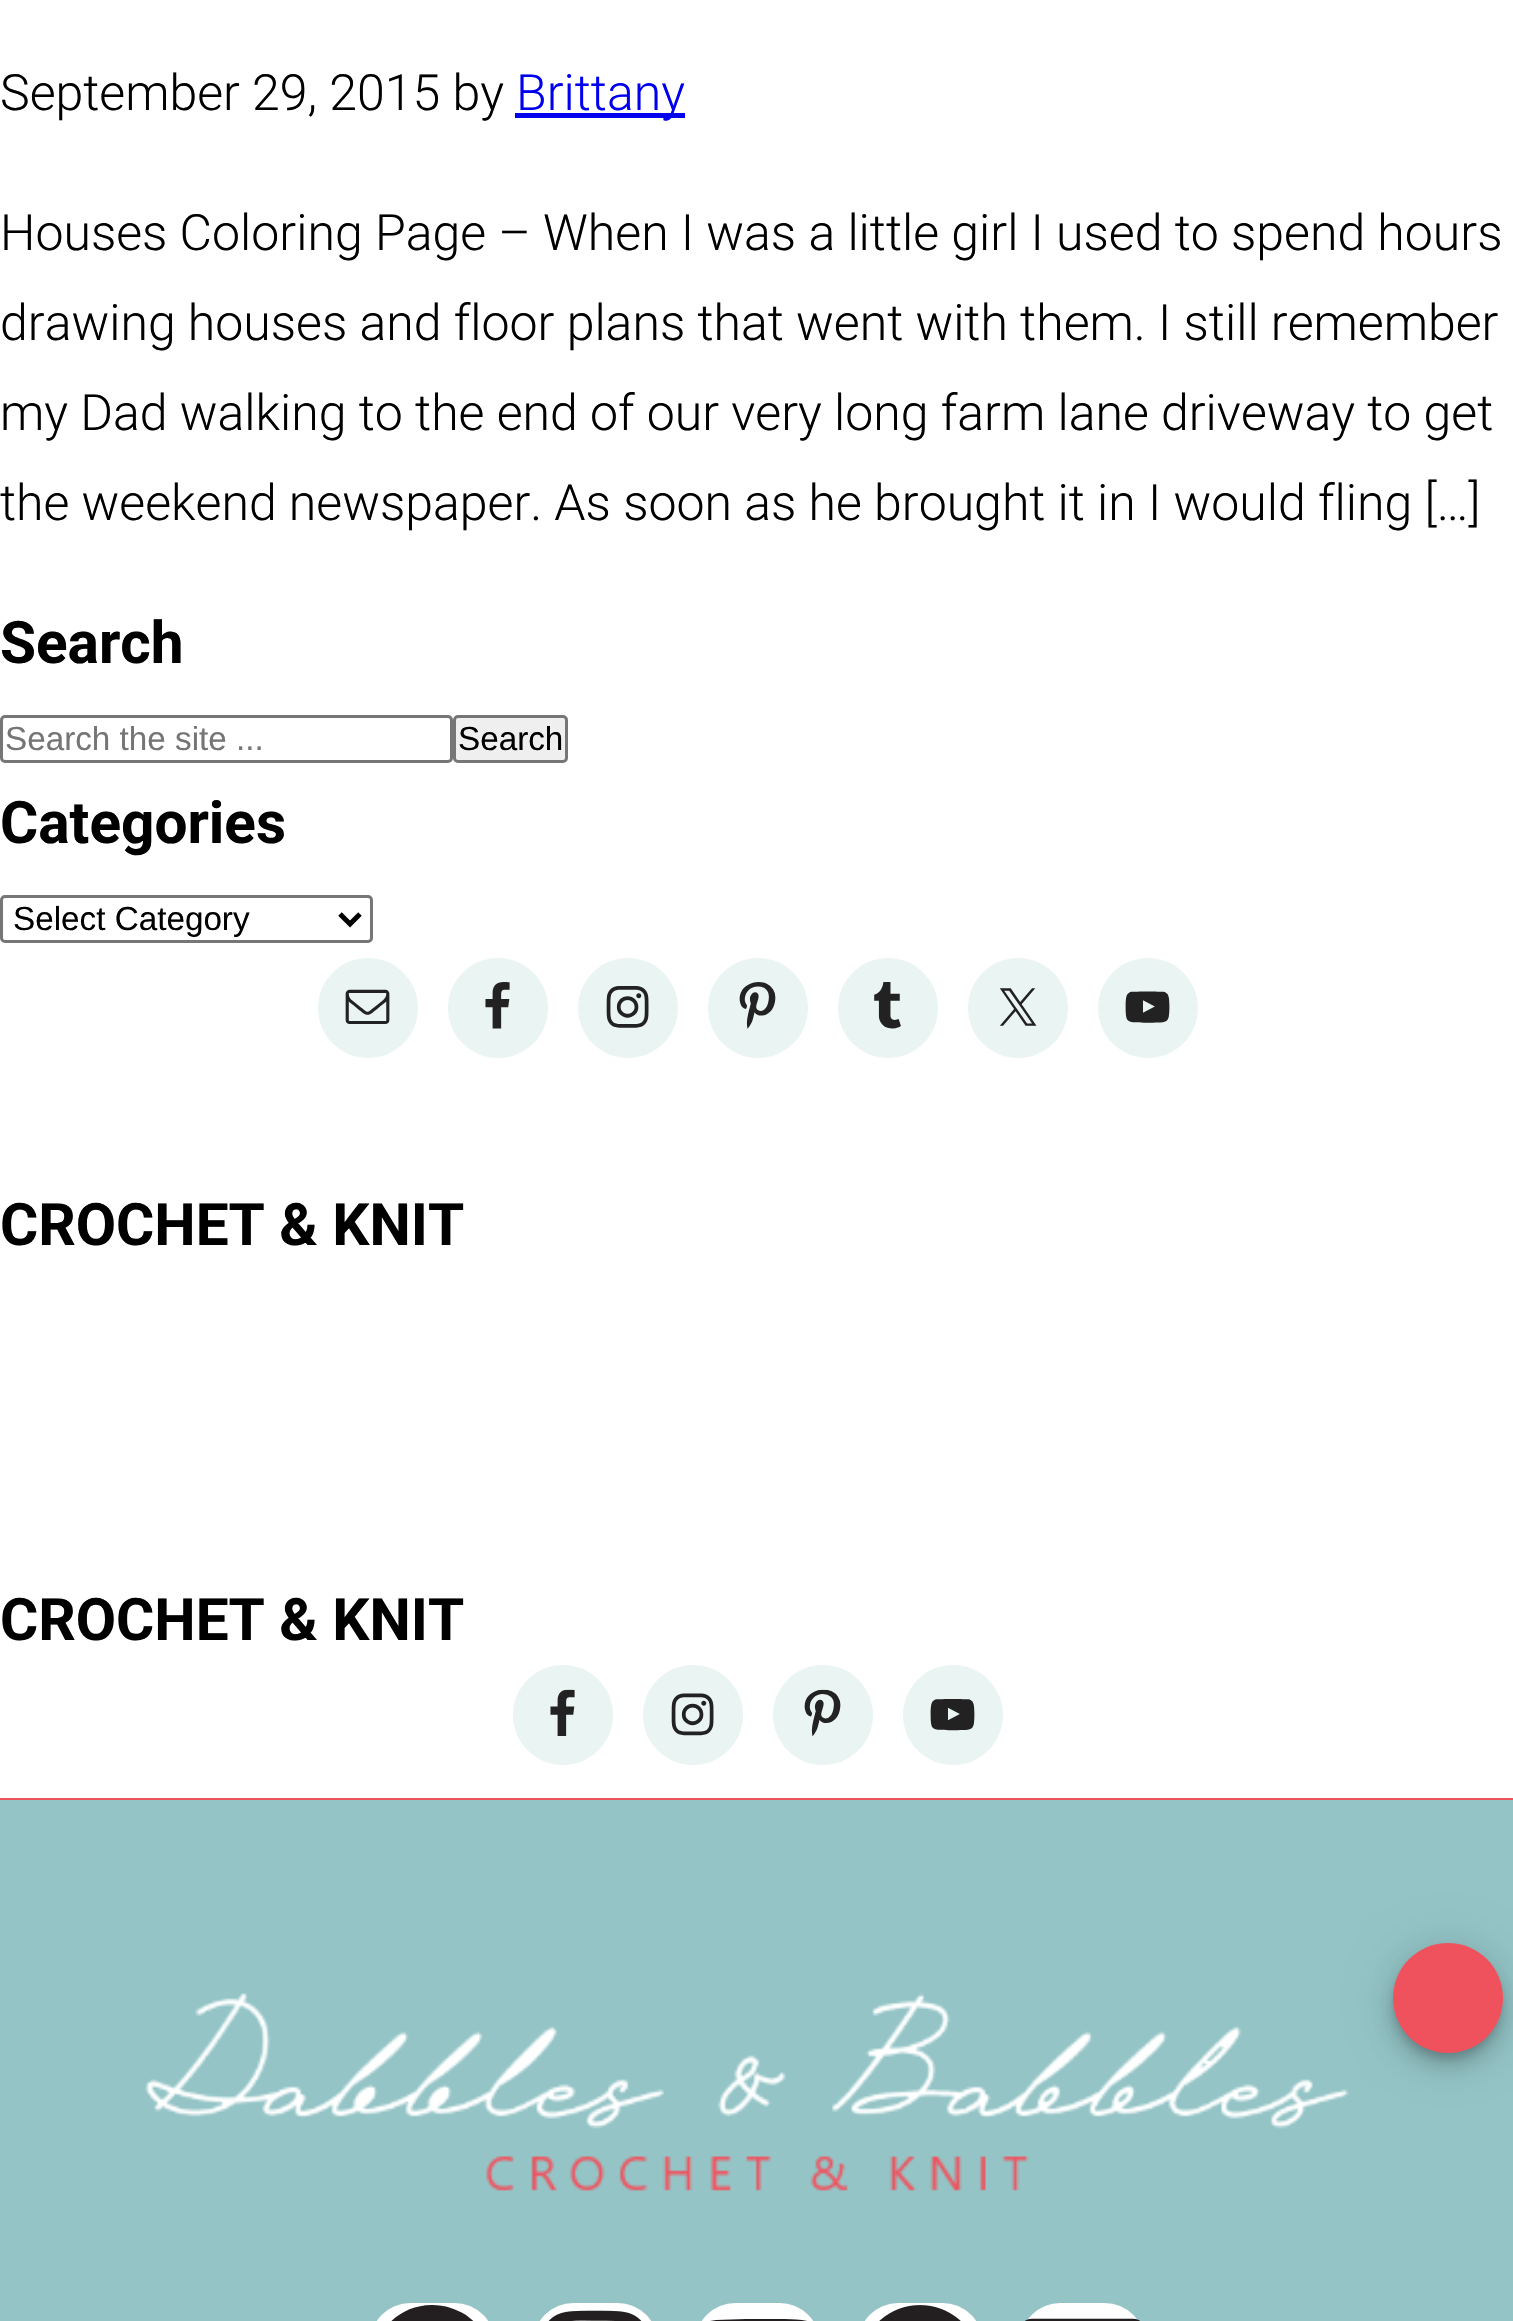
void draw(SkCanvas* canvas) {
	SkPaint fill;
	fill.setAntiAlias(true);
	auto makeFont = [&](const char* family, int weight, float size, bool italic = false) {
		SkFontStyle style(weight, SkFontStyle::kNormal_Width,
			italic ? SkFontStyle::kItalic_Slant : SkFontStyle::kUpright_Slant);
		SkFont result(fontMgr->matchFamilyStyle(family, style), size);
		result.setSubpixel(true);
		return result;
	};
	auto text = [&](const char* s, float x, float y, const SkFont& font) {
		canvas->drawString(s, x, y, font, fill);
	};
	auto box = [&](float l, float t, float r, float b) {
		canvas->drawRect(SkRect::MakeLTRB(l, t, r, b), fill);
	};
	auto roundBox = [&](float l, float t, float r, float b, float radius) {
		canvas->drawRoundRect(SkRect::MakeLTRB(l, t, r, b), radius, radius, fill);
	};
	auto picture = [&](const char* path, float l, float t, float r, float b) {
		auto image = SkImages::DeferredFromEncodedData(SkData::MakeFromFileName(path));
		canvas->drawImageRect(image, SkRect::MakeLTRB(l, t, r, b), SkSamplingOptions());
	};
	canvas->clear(0xFFFFFFFF);
	fill.setColor(0xFF0000EE);
	box(515, 113, 685, 118);
	fill.setStyle(SkPaint::kStroke_Style);
	fill.setStrokeWidth(3);
	fill.setColor(0xFF767676);
	canvas->drawRoundRect(SkRect::MakeLTRB(1.5f, 716.5f, 451.5f, 761.5f), 3.5f, 3.5f, fill);
	fill.setStyle(SkPaint::kFill_Style);
	fill.setColor(0xFFEFEFEF);
	canvas->drawRoundRect(SkRect::MakeLTRB(454.5f, 716.5f, 566.5f, 761.5f), 3.5f, 3.5f, fill);
	fill.setStyle(SkPaint::kStroke_Style);
	fill.setColor(0xFF767676);
	canvas->drawRoundRect(SkRect::MakeLTRB(454.5f, 716.5f, 566.5f, 761.5f), 3.5f, 3.5f, fill);
	canvas->drawRoundRect(SkRect::MakeLTRB(1.5f, 896.5f, 371.5f, 941.5f), 3.5f, 3.5f, fill);
	fill.setStrokeWidth(5);
	fill.setColor(0xFF000000);
	canvas->drawPath(SkPathBuilder().moveTo(340, 914).lineTo(350, 924).lineTo(360, 914).detach(), fill);
	fill.setStyle(SkPaint::kFill_Style);
	fill.setColor(0xFFEAF5F3);
	canvas->drawCircle(368, 1008, 50, fill);
	picture("image0.png", 345, 989, 390, 1024);
	canvas->drawCircle(498, 1008, 50, fill);
	picture("image1.png", 485, 982, 510, 1029);
	canvas->drawCircle(628, 1008, 50, fill);
	picture("image2.png", 606, 986, 649, 1028);
	canvas->drawCircle(758, 1008, 50, fill);
	picture("image3.png", 739, 982, 776, 1029);
	canvas->drawCircle(888, 1008, 50, fill);
	picture("image4.png", 874, 982, 901, 1029);
	canvas->drawCircle(1018, 1008, 50, fill);
	picture("image5.png", 999, 988, 1037, 1026);
	canvas->drawCircle(1148, 1008, 50, fill);
	picture("image6.png", 1125, 991, 1170, 1023);
	canvas->drawCircle(563, 1715, 50, fill);
	picture("image7.png", 550, 1689, 575, 1736);
	canvas->drawCircle(693, 1715, 50, fill);
	picture("image8.png", 671, 1693, 714, 1736);
	canvas->drawCircle(823, 1715, 50, fill);
	picture("image9.png", 804, 1689, 841, 1736);
	canvas->drawCircle(953, 1715, 50, fill);
	picture("image10.png", 930, 1699, 975, 1731);
	fill.setColor(0xFFF0525D);
	box(0, 1798, 1513, 1800);
	fill.setColor(0xFF94C4C6);
	box(0, 1800, 1513, 2321);
	picture("image11.png", 145, 1993, 1349, 2191);
	fill.setColor(0xFFFFFFFF);
	roundBox(370, 2303, 495, 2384, 62.5f);
	fill.setColor(0xFF231F20);
	canvas->drawPath(SkPathBuilder().moveTo(493, 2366).cubicTo(493, 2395, 471, 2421, 442, 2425).lineTo(442, 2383).lineTo(456, 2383).lineTo(459, 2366).lineTo(442, 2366).cubicTo(442, 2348, 440, 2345, 459, 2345).lineTo(459, 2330).cubicTo(445, 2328, 428, 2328, 424, 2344).cubicTo(422, 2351, 423, 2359, 423, 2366).lineTo(408, 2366).lineTo(408, 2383).lineTo(423, 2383).lineTo(423, 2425).cubicTo(409, 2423, 396, 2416, 387, 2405).cubicTo(353, 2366, 381, 2305, 432, 2305).cubicTo(445, 2305, 456, 2309, 466, 2315).cubicTo(483, 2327, 493, 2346, 493, 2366).close().detach(), fill);
	fill.setColor(0xFFFFFFFF);
	roundBox(533, 2303, 658, 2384, 62.5f);
	picture("image12.png", 548, 2310, 642, 2321);
	roundBox(695, 2303, 820, 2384, 62.5f);
	fill.setColor(0xFF231F20);
	canvas->drawPath(SkPathBuilder().moveTo(821, 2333).cubicTo(825, 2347, 824, 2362, 824, 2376).cubicTo(824, 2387, 824, 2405, 811, 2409).lineTo(799, 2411).lineTo(769, 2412).lineTo(730, 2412).cubicTo(718, 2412, 698, 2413, 694, 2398).cubicTo(690, 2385, 691, 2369, 691, 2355).cubicTo(691, 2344, 691, 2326, 704, 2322).lineTo(716, 2320).lineTo(746, 2319).lineTo(785, 2319).cubicTo(798, 2320, 817, 2318, 821, 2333).close().moveTo(744, 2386).lineTo(779, 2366).lineTo(744, 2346).close().detach(), fill);
	fill.setColor(0xFFFFFFFF);
	roundBox(858, 2303, 983, 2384, 62.5f);
	picture("image13.png", 879, 2305, 961, 2321);
	roundBox(1020, 2303, 1145, 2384, 62.5f);
	picture("image14.png", 1025, 2318, 1140, 2321);
	fill.setColor(0x1F000000);
	fill.setMaskFilter(SkMaskFilter::MakeBlur(kNormal_SkBlurStyle, 22.5f));
	canvas->drawRoundRect(SkRect::MakeLTRB(1393, 1945, 1503, 2055), 55, 55, fill);
	fill.setMaskFilter(nullptr);
	fill.setColor(0x24000000);
	fill.setMaskFilter(SkMaskFilter::MakeBlur(kNormal_SkBlurStyle, 12.5f));
	canvas->drawRoundRect(SkRect::MakeLTRB(1393, 1958, 1503, 2068), 55, 55, fill);
	fill.setMaskFilter(nullptr);
	fill.setColor(0x33000000);
	fill.setMaskFilter(SkMaskFilter::MakeBlur(kNormal_SkBlurStyle, 6));
	canvas->drawRoundRect(SkRect::MakeLTRB(1395, 1953, 1500, 2058), 52.5f, 52.5f, fill);
	fill.setMaskFilter(nullptr);
	fill.setColor(0xFFF0525D);
	canvas->drawCircle(1448, 1998, 55, fill);
	auto font1 = makeFont("Roboto", 300, 50);
	fill.setColor(0xFF000000);
	text("September 29, 2015 by", 0, 110, font1);
	fill.setColor(0xFF0000EE);
	text("Brittany", 516, 110, font1);
	fill.setColor(0xFF000000);
	text("Houses Coloring Page – When I was a little girl I used to spend hours", 0, 250, font1);
	text("drawing houses and floor plans that went with them. I still remember", 0, 340, font1);
	text("my Dad walking to the end of our very long farm lane driveway to get", 0, 430, font1);
	text("the weekend newspaper. As soon as he brought it in I would fling […]", 0, 520, font1);
	auto font2 = makeFont("Roboto", 700, 58.5f);
	text("Search", 0, 663, font2);
	auto font3 = makeFont("Liberation Sans", 400, 33.25f);
	fill.setColor(0xFF757575);
	text("Search the site ...", 5, 750, font3);
	fill.setColor(0xFF000000);
	text("Search", 458, 750, font3);
	text("Categories", 0, 843, font2);
	text("Select Category", 13, 930, font3);
	text("CROCHET & KNIT", 0, 1245, font2);
	text("CROCHET & KNIT", 0, 1640, font2);
}
